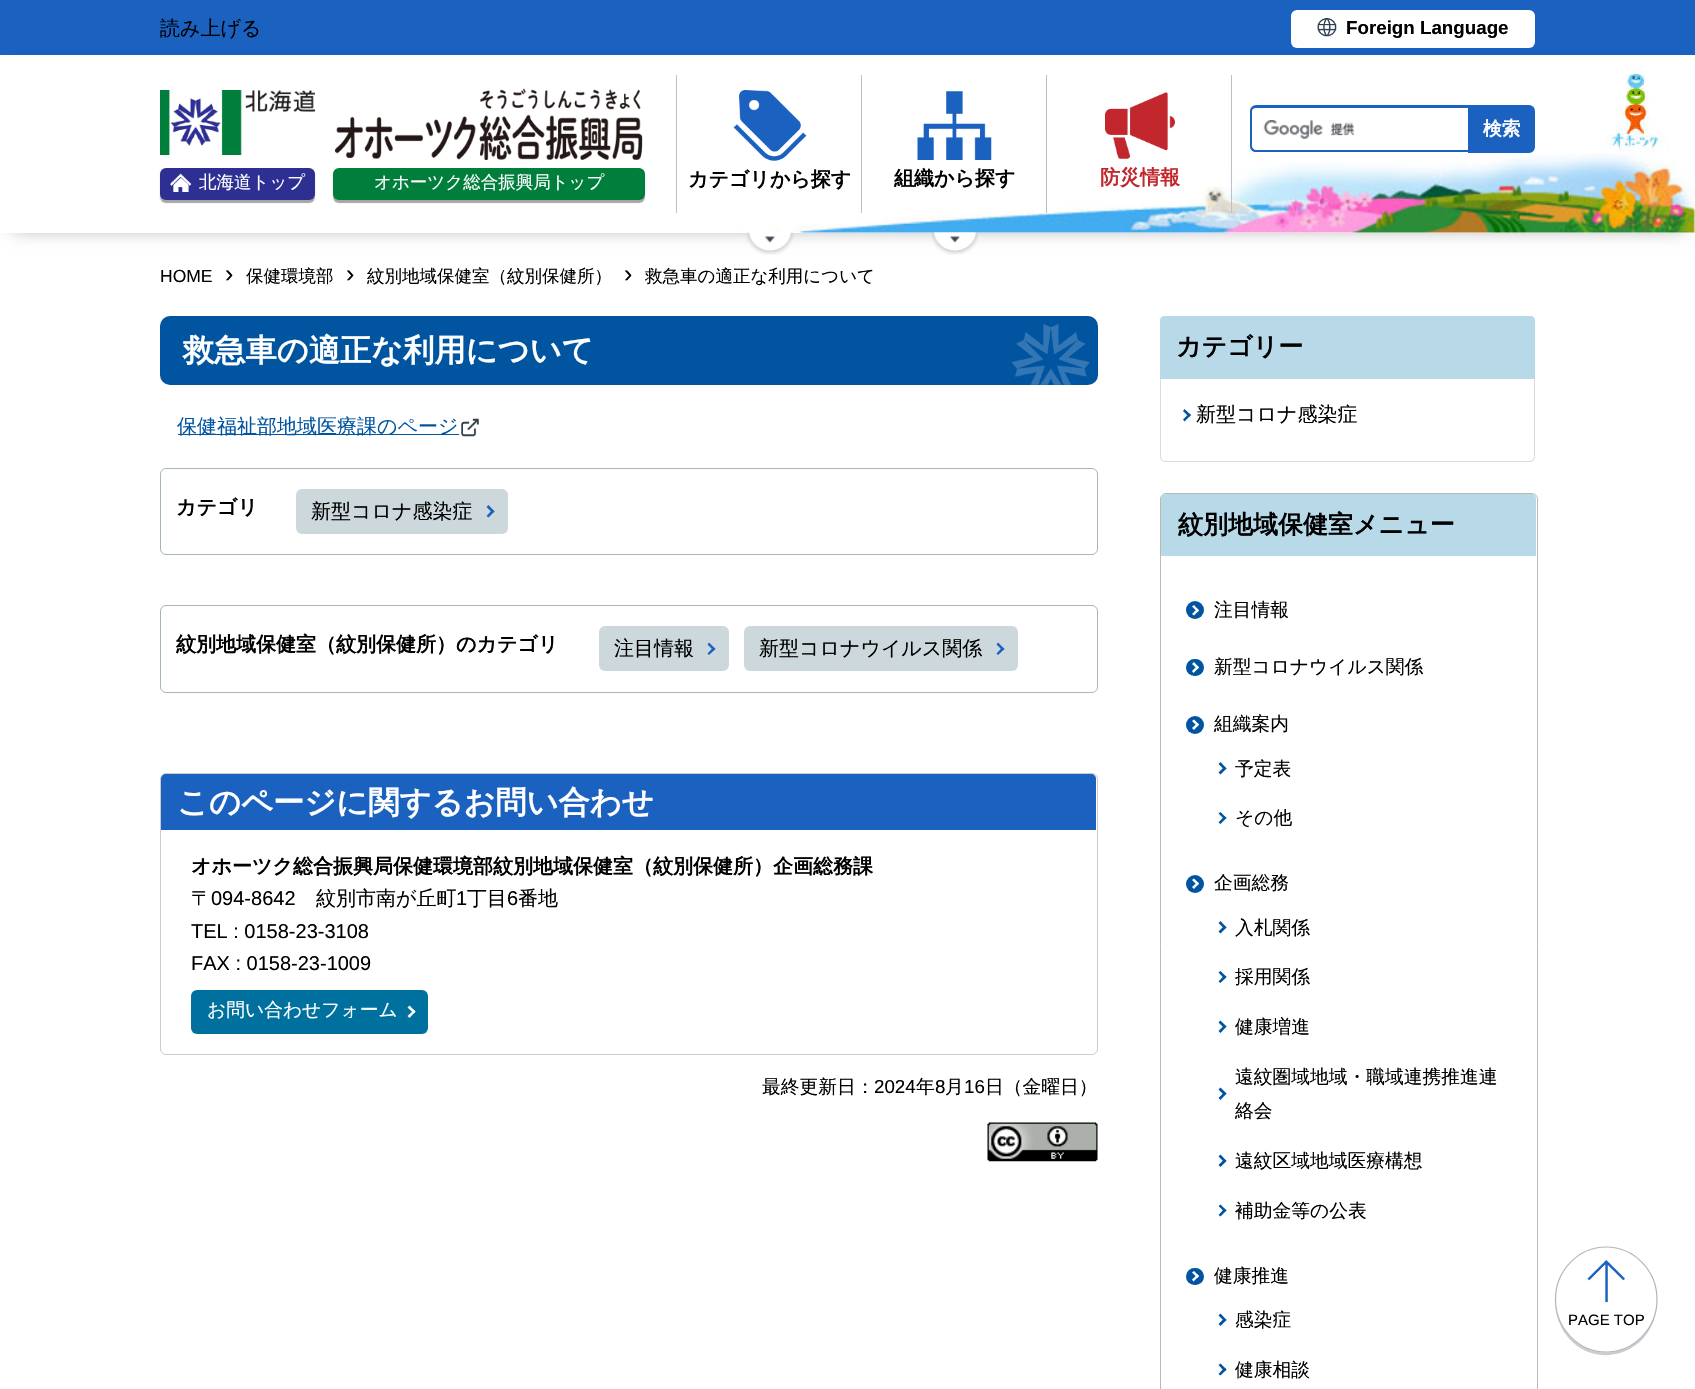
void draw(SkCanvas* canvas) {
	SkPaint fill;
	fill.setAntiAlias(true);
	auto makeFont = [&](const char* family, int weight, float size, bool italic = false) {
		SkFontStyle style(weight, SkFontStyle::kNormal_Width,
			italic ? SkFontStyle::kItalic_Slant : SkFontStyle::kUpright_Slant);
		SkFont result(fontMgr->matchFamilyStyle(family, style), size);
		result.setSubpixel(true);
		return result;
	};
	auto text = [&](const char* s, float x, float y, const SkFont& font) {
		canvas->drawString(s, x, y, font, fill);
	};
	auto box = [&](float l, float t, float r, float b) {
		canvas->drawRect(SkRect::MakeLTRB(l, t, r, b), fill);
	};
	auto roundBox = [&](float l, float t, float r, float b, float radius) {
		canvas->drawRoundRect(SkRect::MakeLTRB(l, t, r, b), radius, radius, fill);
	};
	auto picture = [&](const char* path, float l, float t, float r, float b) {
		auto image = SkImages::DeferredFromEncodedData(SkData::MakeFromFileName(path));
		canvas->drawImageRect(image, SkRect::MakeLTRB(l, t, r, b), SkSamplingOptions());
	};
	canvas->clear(0xFFFFFFFF);
	fill.setColor(0xFF1A61C0);
	box(0, 0, 1695, 55);
	fill.setColor(0xFFFFFFFF);
	roundBox(1291, 10, 1535, 48, 6);
	picture("image0.png", 1317, 18, 1337, 37);
	picture("image10.png", 1606, 65, 1670, 153);
	picture("image11.png", 734, 153, 1695, 233);
	canvas->save();
	canvas->clipPath(SkPathBuilder(SkPathFillType::kEvenOdd).moveTo(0, 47).lineTo(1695, 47).lineTo(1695, 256).lineTo(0, 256).close().moveTo(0, 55).lineTo(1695, 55).lineTo(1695, 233).lineTo(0, 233).close().detach(), true);
	fill.setColor(0x66000000);
	fill.setMaskFilter(SkMaskFilter::MakeBlur(kNormal_SkBlurStyle, 9));
	canvas->drawRect(SkRect::MakeLTRB(13, 75, 1683, 228), fill);
	fill.setMaskFilter(nullptr);
	canvas->restore();
	picture("image1.png", 1263, 120, 1355, 139);
	fill.setColor(0xFF1A61C0);
	canvas->drawPath(SkPathBuilder(SkPathFillType::kEvenOdd).moveTo(1256, 105).lineTo(1475, 105).lineTo(1475, 152).lineTo(1256, 152).cubicTo(1253, 152, 1250, 150, 1250, 146).lineTo(1250, 111).cubicTo(1250, 108, 1253, 105, 1256, 105).close().moveTo(1256, 108).lineTo(1475, 108).lineTo(1475, 150).lineTo(1256, 150).cubicTo(1254, 150, 1252, 148, 1252, 146).lineTo(1252, 111).cubicTo(1252, 109, 1254, 108, 1256, 108).close().detach(), fill);
	canvas->drawPath(SkPathBuilder().moveTo(1469.5f, 106.5f).lineTo(1529, 106.5f).cubicTo(1531.5f, 106.5f, 1533.5f, 108.5f, 1533.5f, 111).lineTo(1533.5f, 147).cubicTo(1533.5f, 149.5f, 1531.5f, 151.5f, 1529, 151.5f).lineTo(1469.5f, 151.5f).close().detach(), fill);
	fill.setStyle(SkPaint::kStroke_Style);
	fill.setStrokeWidth(3);
	canvas->drawPath(SkPathBuilder().moveTo(1469.5f, 106.5f).lineTo(1529, 106.5f).cubicTo(1531.5f, 106.5f, 1533.5f, 108.5f, 1533.5f, 111).lineTo(1533.5f, 147).cubicTo(1533.5f, 149.5f, 1531.5f, 151.5f, 1529, 151.5f).lineTo(1469.5f, 151.5f).close().detach(), fill);
	picture("image2.png", 160, 90, 315, 155);
	fill.setStyle(SkPaint::kFill_Style);
	fill.setColor(0x59000000);
	fill.setMaskFilter(SkMaskFilter::MakeBlur(kNormal_SkBlurStyle, 0.5f));
	canvas->drawRoundRect(SkRect::MakeLTRB(160, 170, 315, 203), 6, 6, fill);
	fill.setMaskFilter(nullptr);
	fill.setColor(0xFF2D2F92);
	roundBox(160, 168, 315, 200, 6);
	picture("image3.png", 170, 173, 192, 192);
	picture("image4.png", 335, 88, 643, 160);
	fill.setColor(0x59000000);
	fill.setMaskFilter(SkMaskFilter::MakeBlur(kNormal_SkBlurStyle, 0.5f));
	canvas->drawRoundRect(SkRect::MakeLTRB(333, 170, 645, 203), 6, 6, fill);
	fill.setMaskFilter(nullptr);
	fill.setColor(0xFF007E3C);
	roundBox(333, 168, 645, 200, 6);
	fill.setColor(0xFFC1BECC);
	box(676, 75, 677, 213);
	picture("image5.png", 733, 90, 807, 161);
	picture("image6.png", 746, 232, 794, 255);
	box(861, 75, 862, 213);
	picture("image7.png", 917, 91, 992, 160);
	picture("image8.png", 931, 232, 979, 255);
	box(1231, 75, 1232, 213);
	box(1046, 75, 1047, 213);
	picture("image9.png", 1105, 92, 1175, 159);
	fill.setColor(0xFF0054A0);
	roundBox(160, 316, 1098, 385, 10);
	picture("image12.png", 1011, 324, 1090, 385);
	box(178, 434, 459, 435);
	picture("image13.png", 461, 418, 479, 437);
	fill.setStyle(SkPaint::kStroke_Style);
	fill.setStrokeWidth(1);
	fill.setColor(0xFFA8B5BA);
	canvas->drawRoundRect(SkRect::MakeLTRB(160.5f, 468.5f, 1097.5f, 554.5f), 5.5f, 5.5f, fill);
	fill.setStyle(SkPaint::kFill_Style);
	fill.setColor(0xFFCCD8DB);
	roundBox(296, 489, 508, 534, 6);
	fill.setColor(0xFF1A61C0);
	canvas->drawPath(SkPathBuilder().moveTo(488.5f, 505).lineTo(494.5f, 511.5f).lineTo(492.5f, 513).lineTo(486.5f, 507).close().detach(), fill);
	canvas->drawPath(SkPathBuilder().moveTo(492.5f, 509.5f).lineTo(494.5f, 511.5f).lineTo(488.5f, 517.5f).lineTo(486.5f, 516).close().detach(), fill);
	fill.setStyle(SkPaint::kStroke_Style);
	fill.setColor(0xFFA8B5BA);
	canvas->drawRoundRect(SkRect::MakeLTRB(160.5f, 605.5f, 1097.5f, 692.5f), 5.5f, 5.5f, fill);
	fill.setStyle(SkPaint::kFill_Style);
	fill.setColor(0xFFCCD8DB);
	roundBox(599, 626, 729, 671, 6);
	fill.setColor(0xFF1A61C0);
	canvas->drawPath(SkPathBuilder().moveTo(709, 642.5f).lineTo(715.5f, 649).lineTo(713.5f, 650.5f).lineTo(707.5f, 644.5f).close().detach(), fill);
	canvas->drawPath(SkPathBuilder().moveTo(713.5f, 647).lineTo(715.5f, 649).lineTo(709, 655).lineTo(707.5f, 653.5f).close().detach(), fill);
	fill.setColor(0xFFCCD8DB);
	roundBox(744, 626, 1018, 671, 6);
	fill.setColor(0xFF1A61C0);
	canvas->drawPath(SkPathBuilder().moveTo(998, 642.5f).lineTo(1004.5f, 649).lineTo(1002.5f, 650.5f).lineTo(996.5f, 644.5f).close().detach(), fill);
	canvas->drawPath(SkPathBuilder().moveTo(1002.5f, 647).lineTo(1004.5f, 649).lineTo(998, 655).lineTo(996.5f, 653.5f).close().detach(), fill);
	fill.setStyle(SkPaint::kStroke_Style);
	fill.setColor(0xFFCCCCCC);
	canvas->drawRoundRect(SkRect::MakeLTRB(160.5f, 773.5f, 1097.5f, 1054.5f), 5.5f, 5.5f, fill);
	fill.setStyle(SkPaint::kFill_Style);
	fill.setColor(0xFF1A61C0);
	canvas->drawPath(SkPathBuilder().moveTo(166, 774).lineTo(1091, 774).cubicTo(1094, 774, 1096, 776, 1096, 779).lineTo(1096, 830).lineTo(161, 830).lineTo(161, 779).cubicTo(161, 776, 163, 774, 166, 774).close().detach(), fill);
	fill.setColor(0xFF00719E);
	roundBox(191, 990, 428, 1034, 6);
	fill.setColor(0xFFFFFFFF);
	canvas->drawPath(SkPathBuilder().moveTo(409.5f, 1005.5f).lineTo(415.5f, 1011.5f).lineTo(414, 1013.5f).lineTo(407.5f, 1007.5f).close().detach(), fill);
	canvas->drawPath(SkPathBuilder().moveTo(414, 1010).lineTo(415.5f, 1011.5f).lineTo(409.5f, 1018).lineTo(407.5f, 1016).close().detach(), fill);
	picture("image14.png", 987, 1122, 1098, 1162);
	fill.setColor(0xFFB8D9E8);
	canvas->drawPath(SkPathBuilder().moveTo(1164, 316).lineTo(1531, 316).cubicTo(1533, 316, 1535, 318, 1535, 320).lineTo(1535, 379).lineTo(1160, 379).lineTo(1160, 320).cubicTo(1160, 318, 1162, 316, 1164, 316).close().detach(), fill);
	fill.setColor(0xFFDBDBDB);
	canvas->drawPath(SkPathBuilder(SkPathFillType::kEvenOdd).moveTo(1160, 379).lineTo(1535, 379).lineTo(1535, 456).cubicTo(1535, 460, 1532, 462, 1529, 462).lineTo(1166, 462).cubicTo(1163, 462, 1160, 460, 1160, 456).close().moveTo(1161, 379).lineTo(1534, 379).lineTo(1534, 456).cubicTo(1534, 459, 1532, 461, 1529, 461).lineTo(1166, 461).cubicTo(1163, 461, 1161, 459, 1161, 456).close().detach(), fill);
	fill.setColor(0xFF0054A0);
	canvas->drawPath(SkPathBuilder().moveTo(1184.5f, 409).lineTo(1191, 415).lineTo(1189, 417).lineTo(1183, 411).close().detach(), fill);
	canvas->drawPath(SkPathBuilder().moveTo(1189, 413.5f).lineTo(1191, 415).lineTo(1184.5f, 421.5f).lineTo(1183, 419.5f).close().detach(), fill);
	fill.setStyle(SkPaint::kStroke_Style);
	fill.setColor(0xFFB9B9BA);
	canvas->drawRoundRect(SkRect::MakeLTRB(1160.5f, 493.5f, 1537.5f, 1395.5f), 5.5f, 5.5f, fill);
	fill.setStyle(SkPaint::kFill_Style);
	fill.setColor(0xFFB8D9E8);
	canvas->drawPath(SkPathBuilder().moveTo(1165, 494).lineTo(1532, 494).cubicTo(1534, 494, 1536, 496, 1536, 498).lineTo(1536, 556).lineTo(1161, 556).lineTo(1161, 498).cubicTo(1161, 496, 1163, 494, 1165, 494).close().detach(), fill);
	fill.setColor(0xFF0054A0);
	canvas->drawCircle(1195, 610, 9, fill);
	fill.setColor(0xFFFFFFFF);
	canvas->drawPath(SkPathBuilder().moveTo(1194, 605).lineTo(1199, 610.5f).lineTo(1197.5f, 612).lineTo(1192, 606.5f).close().detach(), fill);
	canvas->drawPath(SkPathBuilder().moveTo(1197.5f, 608.5f).lineTo(1199, 610.5f).lineTo(1194, 615.5f).lineTo(1192, 614).close().detach(), fill);
	fill.setColor(0xFF0054A0);
	roundBox(1186, 659, 1204, 676, 8.5f);
	fill.setColor(0xFFFFFFFF);
	canvas->drawPath(SkPathBuilder().moveTo(1194, 662).lineTo(1199, 667.5f).lineTo(1197.5f, 669).lineTo(1192, 664).close().detach(), fill);
	canvas->drawPath(SkPathBuilder().moveTo(1197.5f, 665.5f).lineTo(1199, 667.5f).lineTo(1193.5f, 673).lineTo(1192, 671).close().detach(), fill);
	fill.setColor(0xFF0054A0);
	canvas->drawCircle(1195, 725, 9, fill);
	fill.setColor(0xFFFFFFFF);
	canvas->drawPath(SkPathBuilder().moveTo(1194, 719.5f).lineTo(1199, 724.5f).lineTo(1197.5f, 726.5f).lineTo(1192, 721).close().detach(), fill);
	canvas->drawPath(SkPathBuilder().moveTo(1197.5f, 723).lineTo(1199, 724.5f).lineTo(1194, 730).lineTo(1192, 728).close().detach(), fill);
	fill.setColor(0xFF0054A0);
	canvas->drawPath(SkPathBuilder().moveTo(1220.5f, 762).lineTo(1226.5f, 768.5f).lineTo(1224.5f, 770).lineTo(1218.5f, 764).close().detach(), fill);
	canvas->drawPath(SkPathBuilder().moveTo(1224.5f, 766.5f).lineTo(1226.5f, 768.5f).lineTo(1220.5f, 774.5f).lineTo(1218.5f, 772.5f).close().detach(), fill);
	canvas->drawPath(SkPathBuilder().moveTo(1220.5f, 812).lineTo(1226.5f, 818).lineTo(1224.5f, 819.5f).lineTo(1218.5f, 813.5f).close().detach(), fill);
	canvas->drawPath(SkPathBuilder().moveTo(1224.5f, 816).lineTo(1226.5f, 818).lineTo(1220.5f, 824).lineTo(1218.5f, 822.5f).close().detach(), fill);
	canvas->drawCircle(1195, 884, 9, fill);
	fill.setColor(0xFFFFFFFF);
	canvas->drawPath(SkPathBuilder().moveTo(1194, 878.5f).lineTo(1199, 883.5f).lineTo(1197.5f, 885.5f).lineTo(1192, 880).close().detach(), fill);
	canvas->drawPath(SkPathBuilder().moveTo(1197.5f, 882).lineTo(1199, 883.5f).lineTo(1194, 889).lineTo(1192, 887).close().detach(), fill);
	fill.setColor(0xFF0054A0);
	canvas->drawPath(SkPathBuilder().moveTo(1220.5f, 921).lineTo(1226.5f, 927.5f).lineTo(1224.5f, 929).lineTo(1218.5f, 923).close().detach(), fill);
	canvas->drawPath(SkPathBuilder().moveTo(1224.5f, 925.5f).lineTo(1226.5f, 927.5f).lineTo(1220.5f, 933.5f).lineTo(1218.5f, 931.5f).close().detach(), fill);
	canvas->drawPath(SkPathBuilder().moveTo(1220.5f, 971).lineTo(1226.5f, 977).lineTo(1224.5f, 979).lineTo(1218.5f, 972.5f).close().detach(), fill);
	canvas->drawPath(SkPathBuilder().moveTo(1224.5f, 975).lineTo(1226.5f, 977).lineTo(1220.5f, 983).lineTo(1218.5f, 981.5f).close().detach(), fill);
	canvas->drawPath(SkPathBuilder().moveTo(1220.5f, 1020.5f).lineTo(1226.5f, 1026.5f).lineTo(1224.5f, 1028.5f).lineTo(1218.5f, 1022.5f).close().detach(), fill);
	canvas->drawPath(SkPathBuilder().moveTo(1224.5f, 1025).lineTo(1226.5f, 1026.5f).lineTo(1220.5f, 1033).lineTo(1218.5f, 1031).close().detach(), fill);
	canvas->drawPath(SkPathBuilder().moveTo(1220.5f, 1087.5f).lineTo(1226.5f, 1093.5f).lineTo(1224.5f, 1095.5f).lineTo(1218.5f, 1089.5f).close().detach(), fill);
	canvas->drawPath(SkPathBuilder().moveTo(1224.5f, 1092).lineTo(1226.5f, 1093.5f).lineTo(1220.5f, 1100).lineTo(1218.5f, 1098).close().detach(), fill);
	canvas->drawPath(SkPathBuilder().moveTo(1220.5f, 1154.5f).lineTo(1226.5f, 1161).lineTo(1224.5f, 1162.5f).lineTo(1218.5f, 1156.5f).close().detach(), fill);
	canvas->drawPath(SkPathBuilder().moveTo(1224.5f, 1159).lineTo(1226.5f, 1161).lineTo(1220.5f, 1167).lineTo(1218.5f, 1165).close().detach(), fill);
	canvas->drawPath(SkPathBuilder().moveTo(1220.5f, 1204.5f).lineTo(1226.5f, 1210.5f).lineTo(1224.5f, 1212).lineTo(1218.5f, 1206).close().detach(), fill);
	canvas->drawPath(SkPathBuilder().moveTo(1224.5f, 1208.5f).lineTo(1226.5f, 1210.5f).lineTo(1220.5f, 1216.5f).lineTo(1218.5f, 1215).close().detach(), fill);
	roundBox(1186, 1268, 1204, 1285, 8.5f);
	fill.setColor(0xFFFFFFFF);
	canvas->drawPath(SkPathBuilder().moveTo(1194, 1271).lineTo(1199, 1276).lineTo(1197.5f, 1278).lineTo(1192, 1272.5f).close().detach(), fill);
	canvas->drawPath(SkPathBuilder().moveTo(1197.5f, 1274.5f).lineTo(1199, 1276).lineTo(1193.5f, 1281.5f).lineTo(1192, 1279.5f).close().detach(), fill);
	fill.setColor(0xFF0054A0);
	canvas->drawPath(SkPathBuilder().moveTo(1220.5f, 1313.5f).lineTo(1226.5f, 1320).lineTo(1224.5f, 1321.5f).lineTo(1218.5f, 1315.5f).close().detach(), fill);
	canvas->drawPath(SkPathBuilder().moveTo(1224.5f, 1318).lineTo(1226.5f, 1320).lineTo(1220.5f, 1326).lineTo(1218.5f, 1324).close().detach(), fill);
	canvas->drawPath(SkPathBuilder().moveTo(1220.5f, 1363.5f).lineTo(1226.5f, 1369.5f).lineTo(1224.5f, 1371.5f).lineTo(1218.5f, 1365).close().detach(), fill);
	canvas->drawPath(SkPathBuilder().moveTo(1224.5f, 1367.5f).lineTo(1226.5f, 1369.5f).lineTo(1220.5f, 1375.5f).lineTo(1218.5f, 1374).close().detach(), fill);
	fill.setColor(0xFFCCCCCC);
	canvas->drawPath(SkPathBuilder().moveTo(1656, 1311).cubicTo(1651, 1335, 1631, 1352, 1606, 1352).cubicTo(1578, 1352, 1556, 1329, 1555, 1301).cubicTo(1555, 1312, 1558, 1322, 1564, 1332).cubicTo(1590, 1372, 1649, 1357, 1656, 1311).close().detach(), fill);
	fill.setColor(0xE6FFFFFF);
	canvas->drawOval(SkRect::MakeLTRB(1555, 1246.5f, 1657, 1352.5f), fill);
	fill.setStyle(SkPaint::kStroke_Style);
	fill.setStrokeWidth(1.2f);
	fill.setColor(0xFFACB5BF);
	canvas->drawPath(SkPathBuilder().moveTo(1606, 1247).cubicTo(1634, 1247, 1657, 1270.5f, 1657, 1299.5f).cubicTo(1657, 1328.5f, 1634, 1352, 1606, 1352).cubicTo(1578.5f, 1352, 1555.5f, 1328.5f, 1555.5f, 1299.5f).cubicTo(1555.5f, 1270.5f, 1578.5f, 1247, 1606, 1247).close().detach(), fill);
	picture("image15.png", 1587, 1260, 1625, 1303);
	auto font1 = makeFont("WenQuanYi Zen Hei", 500, 20);
	fill.setStyle(SkPaint::kFill_Style);
	fill.setColor(0xFF000000);
	text("読み上げる", 160, 35, font1);
	auto font2 = makeFont("Liberation Sans", 700, 18.75f);
	text("Foreign Language", 1346, 34, font2);
	auto font3 = makeFont("WenQuanYi Zen Hei", 700, 18.75f);
	fill.setColor(0xFFFFFFFF);
	text("検索", 1483, 135, font3);
	auto font4 = makeFont("WenQuanYi Zen Hei", 500, 17.5f);
	text("北海道トップ", 199, 188, font4);
	text("オホーツク総合振興局トップ", 374, 188, font4);
	auto font5 = makeFont("WenQuanYi Zen Hei", 700, 20);
	fill.setColor(0xFF000000);
	text("カテゴリから探す", 688, 186, font5);
	text("組織から探す", 894, 185, font5);
	fill.setColor(0xFFC1272D);
	text("防災情報", 1100, 184, font5);
	auto font6 = makeFont("Liberation Sans", 400, 17.5f);
	fill.setColor(0xFF000000);
	text("HOME", 160, 282, font6);
	auto font7 = makeFont("Liberation Sans", 400, 25);
	text("›", 225, 282, font7);
	text("保健環境部", 246, 282, font4);
	text("›", 346, 282, font7);
	text("紋別地域保健室（紋別保健所）", 367, 282, font4);
	text("›", 624, 282, font7);
	text("救急車の適正な利用について", 645, 282, font4);
	auto font8 = makeFont("WenQuanYi Zen Hei", 700, 31.25f);
	fill.setColor(0xFFFFFFFF);
	text("救急車の適正な利用について", 183, 361, font8);
	fill.setColor(0xFF0054A0);
	text("保健福祉部地域医療課のページ", 177, 433, font1);
	fill.setColor(0xFF000000);
	text("カテゴリ", 176, 514, font5);
	text("新型コロナ感染症", 311, 518, font1);
	text("紋別地域保健室（紋別保健所）のカテゴリ", 176, 651, font5);
	text("注目情報", 614, 655, font1);
	text("新型コロナウイルス関係", 759, 655, font1);
	fill.setColor(0xFFFFFFFF);
	text("このページに関するお問い合わせ", 177, 813, font8);
	fill.setColor(0xFF000000);
	text("オホーツク総合振興局保健環境部紋別地域保健室（紋別保健所）企画総務課", 191, 873, font5);
	text("〒", 191, 905, font1);
	auto font9 = makeFont("Liberation Sans", 400, 20);
	text("094-8642", 211, 905, font9);
	text("紋別市南が丘町", 316, 905, font1);
	text("1", 456, 905, font9);
	text("丁目", 467, 905, font1);
	text("6", 507, 905, font9);
	text("番地", 518, 905, font1);
	text("TEL : 0158-23-3108", 191, 938, font9);
	text("FAX : 0158-23-1009", 191, 970, font9);
	auto font10 = makeFont("WenQuanYi Zen Hei", 500, 18.75f);
	fill.setColor(0xFFFFFFFF);
	text("お問い合わせフォーム", 207, 1016, font10);
	fill.setColor(0xFF000000);
	text("最終更新日：", 762, 1093, font10);
	auto font11 = makeFont("Liberation Sans", 400, 18.75f);
	text("2024", 874, 1093, font11);
	text("年", 916, 1093, font10);
	text("8", 935, 1093, font11);
	text("月", 945, 1093, font10);
	text("16", 964, 1093, font11);
	text("日（金曜日）", 985, 1093, font10);
	auto font12 = makeFont("WenQuanYi Zen Hei", 700, 25);
	text("カテゴリー", 1176, 355, font12);
	text("新型コロナ感染症", 1196, 421, font1);
	text("紋別地域保健室メニュー", 1178, 533, font12);
	text("注目情報", 1214, 616, font10);
	text("新型コロナウイルス関係", 1214, 673, font10);
	text("組織案内", 1214, 730, font10);
	text("予定表", 1235, 775, font10);
	text("その他", 1235, 824, font10);
	text("企画総務", 1214, 889, font10);
	text("入札関係", 1235, 934, font10);
	text("採用関係", 1235, 983, font10);
	text("健康増進", 1235, 1033, font10);
	text("遠紋圏域地域・職域連携推進連", 1235, 1083, font10);
	text("絡会", 1235, 1117, font10);
	text("遠紋区域地域医療構想", 1235, 1167, font10);
	text("補助金等の公表", 1235, 1217, font10);
	text("健康推進", 1214, 1282, font10);
	text("感染症", 1235, 1326, font10);
	text("健康相談", 1235, 1376, font10);
	auto font13 = makeFont("Liberation Sans", 400, 15);
	text("PAGE TOP", 1568, 1325, font13);
}
